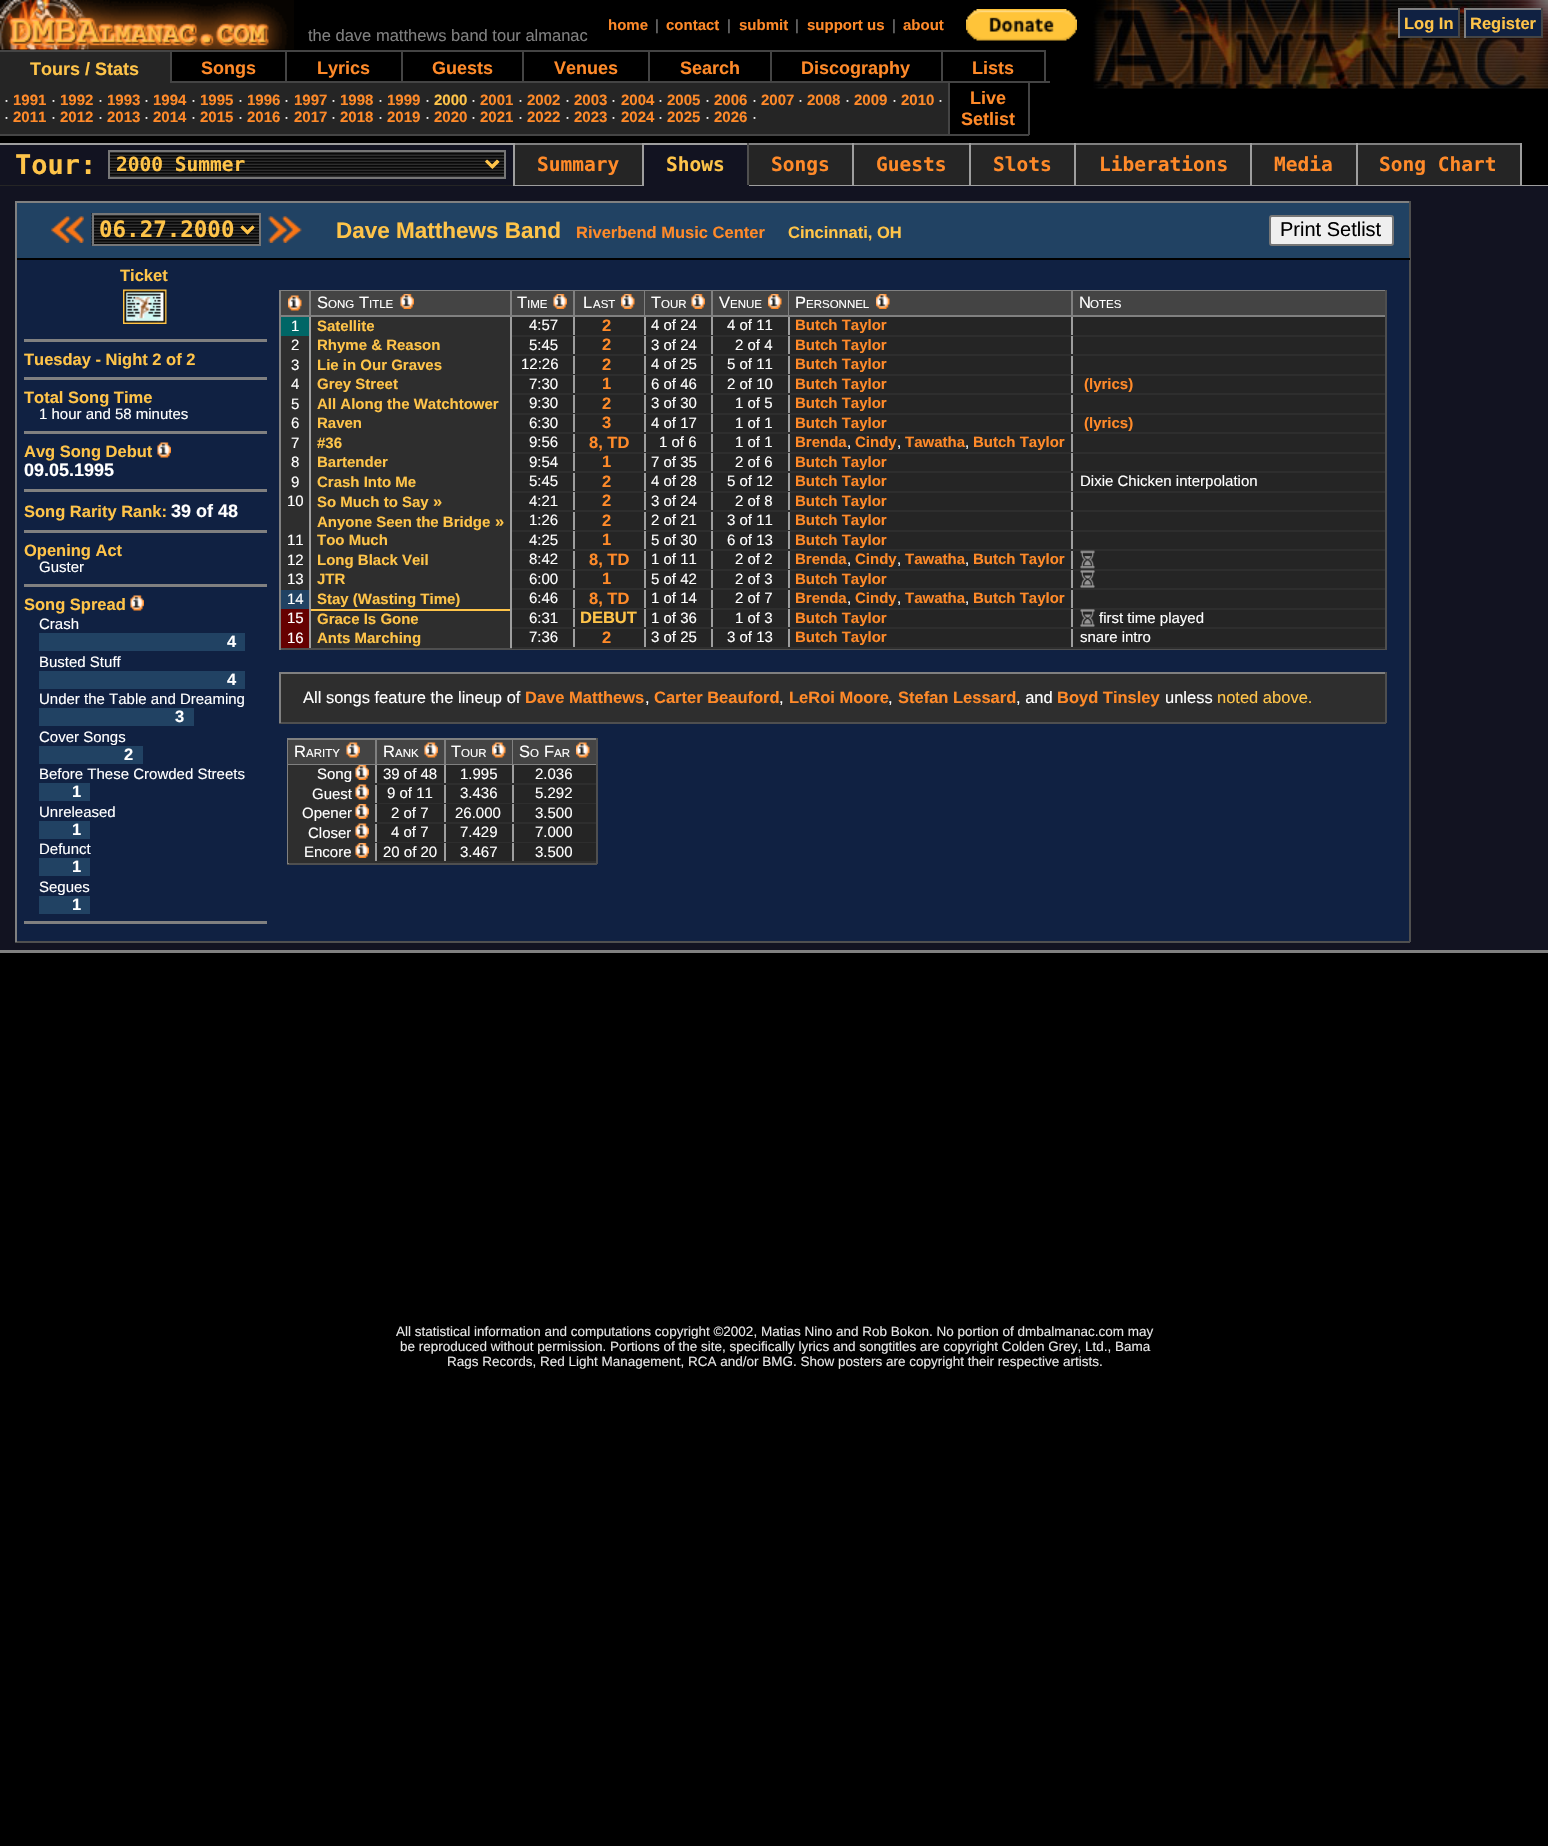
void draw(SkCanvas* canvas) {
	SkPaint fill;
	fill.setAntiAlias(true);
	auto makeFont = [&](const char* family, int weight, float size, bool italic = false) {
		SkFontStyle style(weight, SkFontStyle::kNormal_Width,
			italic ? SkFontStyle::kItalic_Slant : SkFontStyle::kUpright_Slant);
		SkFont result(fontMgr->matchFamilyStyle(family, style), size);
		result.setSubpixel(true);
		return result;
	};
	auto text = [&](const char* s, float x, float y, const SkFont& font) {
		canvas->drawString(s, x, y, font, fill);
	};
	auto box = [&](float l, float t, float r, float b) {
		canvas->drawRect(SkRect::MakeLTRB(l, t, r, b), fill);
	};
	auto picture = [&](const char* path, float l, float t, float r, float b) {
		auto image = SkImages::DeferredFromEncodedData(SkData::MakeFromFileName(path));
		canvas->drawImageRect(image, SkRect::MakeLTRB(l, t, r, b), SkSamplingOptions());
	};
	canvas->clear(0xFF000000);
	picture("image0.png", 966, 9, 1077, 41);
	picture("image1.png", 0, 0, 294, 50);
	picture("image2.png", 1093, 0, 1548, 89);
	fill.setColor(0xFF102142);
	box(1400, 10, 1458, 36);
	fill.setColor(0xFF808080);
	box(1398, 8, 1460, 10);
	fill.setColor(0xFF444444);
	box(1458, 8, 1460, 38);
	box(1398, 36, 1460, 38);
	fill.setColor(0xFF808080);
	box(1398, 8, 1400, 38);
	fill.setColor(0xFF102142);
	box(1466, 10, 1541, 36);
	fill.setColor(0xFF808080);
	box(1464, 8, 1542, 10);
	fill.setColor(0xFF444444);
	box(1541, 8, 1543, 38);
	box(1464, 36, 1542, 38);
	fill.setColor(0xFF808080);
	box(1464, 8, 1466, 38);
	fill.setColor(0xFF252525);
	box(0, 52, 170, 83);
	fill.setColor(0xFF444444);
	box(0, 50, 1044, 52);
	box(170, 81, 1050, 83);
	box(170, 50, 172, 83);
	box(285, 50, 287, 83);
	box(401, 50, 403, 83);
	box(522, 50, 524, 83);
	box(648, 50, 650, 83);
	box(770, 50, 772, 83);
	box(941, 50, 943, 83);
	box(1044, 50, 1046, 83);
	fill.setColor(0xFF252525);
	box(0, 83, 948, 134);
	fill.setColor(0xFF444444);
	box(948, 83, 950, 135);
	box(0, 134, 950, 136);
	box(1028, 83, 1030, 135);
	box(950, 134, 1029, 136);
	fill.setColor(0xFF252525);
	box(0, 145, 1520, 186);
	fill.setColor(0xFF121321);
	box(0, 145, 513, 185);
	fill.setColor(0xFF808080);
	box(747, 143, 1521, 145);
	fill.setColor(0xFF9E9E9E);
	box(642, 143, 749, 145);
	fill.setColor(0xFF808080);
	box(513, 143, 644, 145);
	fill.setColor(0xFF9E9E9E);
	box(0, 143, 515, 145);
	box(1520, 185, 1548, 186);
	box(1520, 143, 1522, 186);
	box(1356, 185, 1521, 186);
	box(1356, 143, 1358, 186);
	box(1250, 185, 1358, 186);
	box(1250, 143, 1252, 186);
	box(1074, 185, 1251, 186);
	box(1074, 143, 1076, 186);
	box(969, 185, 1076, 186);
	box(969, 143, 971, 186);
	box(852, 185, 971, 186);
	box(852, 143, 854, 186);
	box(747, 185, 854, 186);
	fill.setColor(0xFF4F4F4F);
	box(747, 143, 749, 186);
	fill.setColor(0xFF121321);
	box(642, 185, 749, 186);
	fill.setColor(0xFF9E9E9E);
	box(642, 143, 644, 186);
	box(513, 185, 644, 186);
	box(513, 143, 515, 186);
	picture("image3.png", 110, 152, 504, 177);
	fill.setStyle(SkPaint::kStroke_Style);
	fill.setStrokeWidth(2);
	fill.setColor(0xFF767676);
	canvas->drawRect(SkRect::MakeLTRB(109, 151, 505, 178), fill);
	fill.setStrokeWidth(3);
	fill.setColor(0xFFFFC449);
	canvas->drawPath(SkPathBuilder().moveTo(486.5f, 161).lineTo(492.5f, 167).lineTo(498.5f, 161).detach(), fill);
	fill.setStyle(SkPaint::kFill_Style);
	fill.setColor(0xFF121321);
	box(644, 145, 747, 185);
	box(0, 186, 1548, 950);
	fill.setColor(0xFF808080);
	box(0, 950, 1548, 951);
	fill.setColor(0xFF214263);
	box(17, 203, 1409, 258);
	fill.setColor(0xFF808080);
	box(15, 201, 1410, 203);
	fill.setColor(0xFF000000);
	box(15, 258, 1256, 260);
	fill.setColor(0xFF808080);
	box(15, 201, 17, 260);
	picture("image4.png", 51, 216, 84, 243);
	picture("image5.png", 91, 213, 259, 246);
	fill.setStyle(SkPaint::kStroke_Style);
	fill.setStrokeWidth(2);
	fill.setColor(0xFF767676);
	canvas->drawRect(SkRect::MakeLTRB(93, 214, 260, 245), fill);
	fill.setStrokeWidth(3);
	fill.setColor(0xFFFFC449);
	canvas->drawPath(SkPathBuilder().moveTo(241.5f, 226.5f).lineTo(247.5f, 232.5f).lineTo(253.5f, 226.5f).detach(), fill);
	picture("image6.png", 268, 216, 302, 243);
	fill.setStyle(SkPaint::kFill_Style);
	fill.setColor(0xFF4F4F4F);
	box(1409, 201, 1411, 942);
	fill.setColor(0xFF000000);
	box(1256, 258, 1410, 260);
	fill.setColor(0xFFEFEFEF);
	canvas->drawRoundRect(SkRect::MakeLTRB(1270, 216, 1393, 245), 2, 2, fill);
	fill.setStyle(SkPaint::kStroke_Style);
	fill.setStrokeWidth(2);
	fill.setColor(0xFF767676);
	canvas->drawRoundRect(SkRect::MakeLTRB(1270, 216, 1393, 245), 2, 2, fill);
	fill.setStyle(SkPaint::kFill_Style);
	fill.setColor(0xFF102142);
	box(17, 260, 1409, 941);
	fill.setColor(0xFF4F4F4F);
	box(15, 941, 1410, 943);
	fill.setColor(0xFF808080);
	box(15, 260, 17, 942);
	picture("image7.png", 123, 289, 167, 324);
	box(24, 339, 267, 342);
	box(24, 377, 267, 380);
	box(24, 431, 267, 434);
	picture("image8.png", 157, 442, 171, 458);
	box(24, 489, 267, 492);
	box(24, 530, 267, 533);
	box(24, 584, 267, 587);
	picture("image8.png", 130, 595, 144, 611);
	fill.setColor(0xFF214263);
	box(39, 633, 245, 651);
	box(39, 671, 245, 689);
	box(39, 708, 194, 726);
	box(39, 746, 143, 764);
	box(39, 783, 90, 801);
	box(39, 821, 90, 839);
	box(39, 858, 90, 876);
	box(39, 896, 90, 914);
	fill.setColor(0xFF808080);
	box(24, 921, 267, 924);
	fill.setColor(0xFF252525);
	box(512, 317, 1385, 647);
	fill.setColor(0xFF808080);
	box(279, 290, 1386, 291);
	fill.setColor(0xFF4F4F4F);
	box(1385, 290, 1387, 650);
	box(279, 648, 1386, 650);
	fill.setColor(0xFF808080);
	box(279, 290, 281, 650);
	fill.setColor(0xFF444444);
	box(281, 291, 309, 315);
	fill.setColor(0xFF808080);
	box(309, 291, 311, 317);
	box(281, 315, 311, 317);
	picture("image9.png", 288, 295, 302, 311);
	fill.setColor(0xFF444444);
	box(311, 291, 510, 315);
	fill.setColor(0xFF808080);
	box(510, 291, 512, 317);
	box(311, 315, 512, 317);
	picture("image10.png", 400, 294, 414, 309);
	fill.setColor(0xFF444444);
	box(512, 291, 573, 315);
	fill.setColor(0xFF808080);
	box(573, 291, 575, 317);
	box(512, 315, 575, 317);
	picture("image10.png", 553, 294, 567, 309);
	fill.setColor(0xFF444444);
	box(575, 291, 644, 315);
	fill.setColor(0xFF808080);
	box(644, 291, 645, 317);
	box(575, 315, 645, 317);
	picture("image11.png", 621, 294, 635, 309);
	fill.setColor(0xFF444444);
	box(645, 291, 711, 315);
	fill.setColor(0xFF808080);
	box(711, 291, 713, 317);
	box(645, 315, 713, 317);
	picture("image10.png", 691, 294, 705, 309);
	fill.setColor(0xFF444444);
	box(713, 291, 788, 315);
	fill.setColor(0xFF808080);
	box(788, 291, 789, 317);
	box(713, 315, 789, 317);
	picture("image11.png", 768, 294, 782, 309);
	fill.setColor(0xFF444444);
	box(789, 291, 1071, 315);
	fill.setColor(0xFF808080);
	box(1071, 291, 1073, 317);
	box(789, 315, 1385, 317);
	picture("image11.png", 876, 294, 890, 309);
	fill.setColor(0xFF444444);
	box(1073, 291, 1385, 315);
	fill.setColor(0xFF006666);
	box(281, 317, 309, 336);
	fill.setColor(0xFF9E9E9E);
	box(309, 317, 311, 648);
	fill.setColor(0xFF2E2E2E);
	box(311, 317, 510, 609);
	fill.setColor(0xFF9E9E9E);
	box(510, 317, 512, 609);
	box(573, 317, 575, 336);
	fill.setColor(0xFF2E2E2E);
	box(512, 335, 575, 337);
	fill.setColor(0xFF9E9E9E);
	box(644, 317, 646, 336);
	fill.setColor(0xFF2E2E2E);
	box(575, 335, 645, 337);
	fill.setColor(0xFF9E9E9E);
	box(711, 317, 713, 336);
	fill.setColor(0xFF2E2E2E);
	box(645, 335, 713, 337);
	fill.setColor(0xFF9E9E9E);
	box(788, 317, 790, 336);
	fill.setColor(0xFF2E2E2E);
	box(713, 335, 789, 337);
	fill.setColor(0xFF9E9E9E);
	box(1071, 317, 1073, 336);
	fill.setColor(0xFF2E2E2E);
	box(789, 335, 1385, 337);
	box(281, 336, 309, 590);
	fill.setColor(0xFF9E9E9E);
	box(573, 336, 575, 375);
	fill.setColor(0xFF2E2E2E);
	box(512, 354, 575, 356);
	fill.setColor(0xFF9E9E9E);
	box(644, 336, 646, 375);
	fill.setColor(0xFF2E2E2E);
	box(575, 354, 645, 356);
	fill.setColor(0xFF9E9E9E);
	box(711, 336, 713, 375);
	fill.setColor(0xFF2E2E2E);
	box(645, 354, 713, 356);
	fill.setColor(0xFF9E9E9E);
	box(788, 336, 790, 375);
	fill.setColor(0xFF2E2E2E);
	box(713, 354, 789, 356);
	fill.setColor(0xFF9E9E9E);
	box(1071, 336, 1073, 375);
	fill.setColor(0xFF2E2E2E);
	box(789, 354, 1385, 356);
	box(512, 374, 1385, 376);
	fill.setColor(0xFF9E9E9E);
	box(573, 375, 575, 414);
	fill.setColor(0xFF2E2E2E);
	box(512, 393, 575, 395);
	fill.setColor(0xFF9E9E9E);
	box(644, 375, 646, 414);
	fill.setColor(0xFF2E2E2E);
	box(575, 393, 645, 395);
	fill.setColor(0xFF9E9E9E);
	box(711, 375, 713, 414);
	fill.setColor(0xFF2E2E2E);
	box(645, 393, 713, 395);
	fill.setColor(0xFF9E9E9E);
	box(788, 375, 790, 414);
	fill.setColor(0xFF2E2E2E);
	box(713, 393, 789, 395);
	fill.setColor(0xFF9E9E9E);
	box(1071, 375, 1073, 414);
	fill.setColor(0xFF2E2E2E);
	box(789, 393, 1385, 395);
	box(512, 413, 1385, 415);
	fill.setColor(0xFF9E9E9E);
	box(573, 414, 575, 453);
	fill.setColor(0xFF2E2E2E);
	box(512, 432, 575, 434);
	fill.setColor(0xFF9E9E9E);
	box(644, 414, 646, 453);
	fill.setColor(0xFF2E2E2E);
	box(575, 432, 645, 434);
	fill.setColor(0xFF9E9E9E);
	box(711, 414, 713, 453);
	fill.setColor(0xFF2E2E2E);
	box(645, 432, 713, 434);
	fill.setColor(0xFF9E9E9E);
	box(788, 414, 790, 453);
	fill.setColor(0xFF2E2E2E);
	box(713, 432, 789, 434);
	fill.setColor(0xFF9E9E9E);
	box(1071, 414, 1073, 453);
	fill.setColor(0xFF2E2E2E);
	box(789, 432, 1385, 434);
	box(512, 452, 1385, 454);
	fill.setColor(0xFF9E9E9E);
	box(573, 453, 575, 492);
	fill.setColor(0xFF2E2E2E);
	box(512, 471, 575, 473);
	fill.setColor(0xFF9E9E9E);
	box(644, 453, 646, 492);
	fill.setColor(0xFF2E2E2E);
	box(575, 471, 645, 473);
	fill.setColor(0xFF9E9E9E);
	box(711, 453, 713, 492);
	fill.setColor(0xFF2E2E2E);
	box(645, 471, 713, 473);
	fill.setColor(0xFF9E9E9E);
	box(788, 453, 790, 492);
	fill.setColor(0xFF2E2E2E);
	box(713, 471, 789, 473);
	fill.setColor(0xFF9E9E9E);
	box(1071, 453, 1073, 492);
	fill.setColor(0xFF2E2E2E);
	box(789, 471, 1385, 473);
	box(512, 491, 1385, 493);
	fill.setColor(0xFF9E9E9E);
	box(573, 492, 575, 531);
	fill.setColor(0xFF2E2E2E);
	box(512, 510, 575, 512);
	fill.setColor(0xFF9E9E9E);
	box(644, 492, 646, 531);
	fill.setColor(0xFF2E2E2E);
	box(575, 510, 645, 512);
	fill.setColor(0xFF9E9E9E);
	box(711, 492, 713, 531);
	fill.setColor(0xFF2E2E2E);
	box(645, 510, 713, 512);
	fill.setColor(0xFF9E9E9E);
	box(788, 492, 790, 531);
	fill.setColor(0xFF2E2E2E);
	box(713, 510, 789, 512);
	fill.setColor(0xFF9E9E9E);
	box(1071, 492, 1073, 531);
	fill.setColor(0xFF2E2E2E);
	box(789, 510, 1385, 512);
	box(512, 530, 1385, 532);
	fill.setColor(0xFF9E9E9E);
	box(573, 531, 575, 570);
	fill.setColor(0xFF2E2E2E);
	box(512, 549, 575, 551);
	fill.setColor(0xFF9E9E9E);
	box(644, 531, 646, 570);
	fill.setColor(0xFF2E2E2E);
	box(575, 549, 645, 551);
	fill.setColor(0xFF9E9E9E);
	box(711, 531, 713, 570);
	fill.setColor(0xFF2E2E2E);
	box(645, 549, 713, 551);
	fill.setColor(0xFF9E9E9E);
	box(788, 531, 790, 570);
	fill.setColor(0xFF2E2E2E);
	box(713, 549, 789, 551);
	fill.setColor(0xFF9E9E9E);
	box(1071, 531, 1073, 570);
	fill.setColor(0xFF2E2E2E);
	box(789, 549, 1385, 551);
	box(512, 569, 1385, 571);
	picture("image12.png", 1080, 550, 1095, 569);
	fill.setColor(0xFF9E9E9E);
	box(573, 570, 575, 609);
	fill.setColor(0xFF2E2E2E);
	box(512, 588, 575, 590);
	fill.setColor(0xFF9E9E9E);
	box(644, 570, 646, 609);
	fill.setColor(0xFF2E2E2E);
	box(575, 588, 645, 590);
	fill.setColor(0xFF9E9E9E);
	box(711, 570, 713, 609);
	fill.setColor(0xFF2E2E2E);
	box(645, 588, 713, 590);
	fill.setColor(0xFF9E9E9E);
	box(788, 570, 790, 609);
	fill.setColor(0xFF2E2E2E);
	box(713, 588, 789, 590);
	fill.setColor(0xFF9E9E9E);
	box(1071, 570, 1073, 609);
	fill.setColor(0xFF2E2E2E);
	box(789, 588, 1385, 590);
	picture("image13.png", 1080, 570, 1095, 588);
	fill.setColor(0xFF214263);
	box(281, 590, 309, 609);
	fill.setColor(0xFF2E2E2E);
	box(512, 608, 1385, 610);
	fill.setColor(0xFF660000);
	box(281, 609, 309, 648);
	fill.setColor(0xFF2E2E2E);
	box(311, 611, 510, 648);
	fill.setColor(0xFFFFC449);
	box(311, 609, 512, 611);
	fill.setColor(0xFF9E9E9E);
	box(510, 609, 512, 648);
	box(573, 609, 575, 648);
	fill.setColor(0xFF2E2E2E);
	box(512, 627, 575, 629);
	fill.setColor(0xFF9E9E9E);
	box(644, 609, 646, 648);
	fill.setColor(0xFF2E2E2E);
	box(575, 627, 645, 629);
	fill.setColor(0xFF9E9E9E);
	box(711, 609, 713, 648);
	fill.setColor(0xFF2E2E2E);
	box(645, 627, 713, 629);
	fill.setColor(0xFF9E9E9E);
	box(788, 609, 790, 648);
	fill.setColor(0xFF2E2E2E);
	box(713, 627, 789, 629);
	fill.setColor(0xFF9E9E9E);
	box(1071, 609, 1073, 648);
	fill.setColor(0xFF2E2E2E);
	box(789, 627, 1385, 629);
	picture("image13.png", 1080, 609, 1095, 627);
	box(512, 647, 1385, 649);
	box(281, 674, 1385, 722);
	fill.setColor(0xFF808080);
	box(279, 672, 1386, 674);
	fill.setColor(0xFF4F4F4F);
	box(1385, 672, 1387, 723);
	box(279, 722, 1386, 724);
	fill.setColor(0xFF808080);
	box(279, 672, 281, 723);
	box(287, 738, 597, 740);
	fill.setColor(0xFF4F4F4F);
	box(596, 738, 598, 864);
	box(287, 863, 597, 865);
	fill.setColor(0xFF808080);
	box(287, 738, 289, 864);
	fill.setColor(0xFF444444);
	box(288, 740, 375, 764);
	fill.setColor(0xFF808080);
	box(375, 740, 377, 765);
	box(288, 764, 377, 765);
	picture("image14.png", 346, 742, 360, 758);
	fill.setColor(0xFF444444);
	box(377, 740, 444, 764);
	fill.setColor(0xFF808080);
	box(444, 740, 446, 765);
	box(377, 764, 446, 765);
	picture("image15.png", 424, 742, 438, 758);
	fill.setColor(0xFF444444);
	box(446, 740, 512, 764);
	fill.setColor(0xFF808080);
	box(512, 740, 513, 765);
	box(446, 764, 596, 765);
	picture("image9.png", 492, 742, 506, 758);
	fill.setColor(0xFF444444);
	box(513, 740, 596, 764);
	picture("image9.png", 576, 742, 590, 758);
	fill.setColor(0xFF252525);
	box(377, 765, 596, 783);
	fill.setColor(0xFF2E2E2E);
	box(288, 765, 375, 783);
	fill.setColor(0xFF9E9E9E);
	box(375, 765, 377, 863);
	fill.setColor(0xFF2E2E2E);
	box(288, 783, 377, 785);
	picture("image16.png", 355, 765, 369, 780);
	fill.setColor(0xFF9E9E9E);
	box(444, 765, 446, 785);
	fill.setColor(0xFF2E2E2E);
	box(377, 783, 446, 785);
	fill.setColor(0xFF9E9E9E);
	box(512, 765, 514, 785);
	fill.setColor(0xFF2E2E2E);
	box(446, 783, 596, 785);
	fill.setColor(0xFF252525);
	box(377, 785, 596, 803);
	fill.setColor(0xFF2E2E2E);
	box(288, 785, 375, 803);
	box(288, 803, 377, 804);
	picture("image17.png", 355, 784, 369, 800);
	fill.setColor(0xFF9E9E9E);
	box(444, 785, 446, 804);
	fill.setColor(0xFF2E2E2E);
	box(377, 803, 446, 804);
	fill.setColor(0xFF9E9E9E);
	box(512, 785, 514, 804);
	fill.setColor(0xFF2E2E2E);
	box(446, 803, 596, 804);
	fill.setColor(0xFF252525);
	box(377, 804, 596, 822);
	fill.setColor(0xFF2E2E2E);
	box(288, 804, 375, 822);
	box(288, 822, 377, 824);
	picture("image16.png", 355, 804, 369, 819);
	fill.setColor(0xFF9E9E9E);
	box(444, 804, 446, 824);
	fill.setColor(0xFF2E2E2E);
	box(377, 822, 446, 824);
	fill.setColor(0xFF9E9E9E);
	box(512, 804, 514, 824);
	fill.setColor(0xFF2E2E2E);
	box(446, 822, 596, 824);
	fill.setColor(0xFF252525);
	box(377, 824, 596, 842);
	fill.setColor(0xFF2E2E2E);
	box(288, 824, 375, 842);
	box(288, 842, 377, 843);
	picture("image17.png", 355, 823, 369, 839);
	fill.setColor(0xFF9E9E9E);
	box(444, 824, 446, 843);
	fill.setColor(0xFF2E2E2E);
	box(377, 842, 446, 843);
	fill.setColor(0xFF9E9E9E);
	box(512, 824, 514, 843);
	fill.setColor(0xFF2E2E2E);
	box(446, 842, 596, 843);
	fill.setColor(0xFF252525);
	box(377, 843, 596, 861);
	fill.setColor(0xFF2E2E2E);
	box(288, 843, 375, 861);
	box(288, 861, 377, 863);
	picture("image16.png", 355, 843, 369, 858);
	fill.setColor(0xFF9E9E9E);
	box(444, 843, 446, 863);
	fill.setColor(0xFF2E2E2E);
	box(377, 861, 446, 863);
	fill.setColor(0xFF9E9E9E);
	box(512, 843, 514, 863);
	fill.setColor(0xFF2E2E2E);
	box(446, 861, 596, 863);
	fill.setColor(0xFF808080);
	box(0, 951, 1548, 953);
	auto font1 = makeFont("Liberation Sans", 700, 15);
	fill.setColor(0xFFFF8A29);
	text("home", 608, 30, font1);
	auto font2 = makeFont("Liberation Sans", 400, 15);
	fill.setColor(0xFF808080);
	text("|", 655, 30, font2);
	fill.setColor(0xFFFF8A29);
	text("contact", 666, 30, font1);
	fill.setColor(0xFF808080);
	text("|", 727, 30, font2);
	fill.setColor(0xFFFF8A29);
	text("submit", 739, 30, font1);
	fill.setColor(0xFF808080);
	text("|", 795, 30, font2);
	fill.setColor(0xFFFF8A29);
	text("support us", 807, 30, font1);
	fill.setColor(0xFF808080);
	text("|", 892, 30, font2);
	fill.setColor(0xFFFF8A29);
	text("about", 903, 30, font1);
	auto font3 = makeFont("Liberation Sans", 400, 16.5f);
	fill.setColor(0xFF808080);
	text("the dave matthews band tour almanac", 308, 41, font3);
	auto font4 = makeFont("Liberation Sans", 700, 16.5f);
	fill.setColor(0xFFFFC449);
	text("Log In", 1404, 29, font4);
	text("Register", 1470, 29, font4);
	auto font5 = makeFont("Liberation Sans", 700, 18);
	text("Tours / Stats", 30, 75, font5);
	fill.setColor(0xFFFF8A29);
	text("Songs", 201, 74, font5);
	text("Lyrics", 317, 74, font5);
	text("Guests", 432, 74, font5);
	text("Venues", 554, 74, font5);
	text("Search", 680, 74, font5);
	text("Discography", 801, 74, font5);
	text("Lists", 972, 74, font5);
	fill.setColor(0xFFFFFFFF);
	text("·", 4, 105, font2);
	fill.setColor(0xFFFF8A29);
	text("1991", 13, 105, font1);
	fill.setColor(0xFFFFFFFF);
	text("·", 51, 105, font2);
	fill.setColor(0xFFFF8A29);
	text("1992", 60, 105, font1);
	fill.setColor(0xFFFFFFFF);
	text("·", 98, 105, font2);
	fill.setColor(0xFFFF8A29);
	text("1993", 107, 105, font1);
	fill.setColor(0xFFFFFFFF);
	text("·", 144, 105, font2);
	fill.setColor(0xFFFF8A29);
	text("1994", 153, 105, font1);
	fill.setColor(0xFFFFFFFF);
	text("·", 191, 105, font2);
	fill.setColor(0xFFFF8A29);
	text("1995", 200, 105, font1);
	fill.setColor(0xFFFFFFFF);
	text("·", 238, 105, font2);
	fill.setColor(0xFFFF8A29);
	text("1996", 247, 105, font1);
	fill.setColor(0xFFFFFFFF);
	text("·", 284, 105, font2);
	fill.setColor(0xFFFF8A29);
	text("1997", 294, 105, font1);
	fill.setColor(0xFFFFFFFF);
	text("·", 331, 105, font2);
	fill.setColor(0xFFFF8A29);
	text("1998", 340, 105, font1);
	fill.setColor(0xFFFFFFFF);
	text("·", 378, 105, font2);
	fill.setColor(0xFFFF8A29);
	text("1999", 387, 105, font1);
	fill.setColor(0xFFFFFFFF);
	text("·", 425, 105, font2);
	fill.setColor(0xFFFFC449);
	text("2000", 434, 105, font1);
	fill.setColor(0xFFFFFFFF);
	text("·", 471, 105, font2);
	fill.setColor(0xFFFF8A29);
	text("2001", 480, 105, font1);
	fill.setColor(0xFFFFFFFF);
	text("·", 518, 105, font2);
	fill.setColor(0xFFFF8A29);
	text("2002", 527, 105, font1);
	fill.setColor(0xFFFFFFFF);
	text("·", 565, 105, font2);
	fill.setColor(0xFFFF8A29);
	text("2003", 574, 105, font1);
	fill.setColor(0xFFFFFFFF);
	text("·", 611, 105, font2);
	fill.setColor(0xFFFF8A29);
	text("2004", 621, 105, font1);
	fill.setColor(0xFFFFFFFF);
	text("·", 658, 105, font2);
	fill.setColor(0xFFFF8A29);
	text("2005", 667, 105, font1);
	fill.setColor(0xFFFFFFFF);
	text("·", 705, 105, font2);
	fill.setColor(0xFFFF8A29);
	text("2006", 714, 105, font1);
	fill.setColor(0xFFFFFFFF);
	text("·", 752, 105, font2);
	fill.setColor(0xFFFF8A29);
	text("2007", 761, 105, font1);
	fill.setColor(0xFFFFFFFF);
	text("·", 798, 105, font2);
	fill.setColor(0xFFFF8A29);
	text("2008", 807, 105, font1);
	fill.setColor(0xFFFFFFFF);
	text("·", 845, 105, font2);
	fill.setColor(0xFFFF8A29);
	text("2009", 854, 105, font1);
	fill.setColor(0xFFFFFFFF);
	text("·", 892, 105, font2);
	fill.setColor(0xFFFF8A29);
	text("2010", 901, 105, font1);
	fill.setColor(0xFFFFFFFF);
	text("·", 938, 105, font2);
	text("·", 4, 122, font2);
	fill.setColor(0xFFFF8A29);
	text("2011", 13, 122, font1);
	fill.setColor(0xFFFFFFFF);
	text("·", 51, 122, font2);
	fill.setColor(0xFFFF8A29);
	text("2012", 60, 122, font1);
	fill.setColor(0xFFFFFFFF);
	text("·", 98, 122, font2);
	fill.setColor(0xFFFF8A29);
	text("2013", 107, 122, font1);
	fill.setColor(0xFFFFFFFF);
	text("·", 144, 122, font2);
	fill.setColor(0xFFFF8A29);
	text("2014", 153, 122, font1);
	fill.setColor(0xFFFFFFFF);
	text("·", 191, 122, font2);
	fill.setColor(0xFFFF8A29);
	text("2015", 200, 122, font1);
	fill.setColor(0xFFFFFFFF);
	text("·", 238, 122, font2);
	fill.setColor(0xFFFF8A29);
	text("2016", 247, 122, font1);
	fill.setColor(0xFFFFFFFF);
	text("·", 284, 122, font2);
	fill.setColor(0xFFFF8A29);
	text("2017", 294, 122, font1);
	fill.setColor(0xFFFFFFFF);
	text("·", 331, 122, font2);
	fill.setColor(0xFFFF8A29);
	text("2018", 340, 122, font1);
	fill.setColor(0xFFFFFFFF);
	text("·", 378, 122, font2);
	fill.setColor(0xFFFF8A29);
	text("2019", 387, 122, font1);
	fill.setColor(0xFFFFFFFF);
	text("·", 425, 122, font2);
	fill.setColor(0xFFFF8A29);
	text("2020", 434, 122, font1);
	fill.setColor(0xFFFFFFFF);
	text("·", 471, 122, font2);
	fill.setColor(0xFFFF8A29);
	text("2021", 480, 122, font1);
	fill.setColor(0xFFFFFFFF);
	text("·", 518, 122, font2);
	fill.setColor(0xFFFF8A29);
	text("2022", 527, 122, font1);
	fill.setColor(0xFFFFFFFF);
	text("·", 565, 122, font2);
	fill.setColor(0xFFFF8A29);
	text("2023", 574, 122, font1);
	fill.setColor(0xFFFFFFFF);
	text("·", 611, 122, font2);
	fill.setColor(0xFFFF8A29);
	text("2024", 621, 122, font1);
	fill.setColor(0xFFFFFFFF);
	text("·", 658, 122, font2);
	fill.setColor(0xFFFF8A29);
	text("2025", 667, 122, font1);
	fill.setColor(0xFFFFFFFF);
	text("·", 705, 122, font2);
	fill.setColor(0xFFFF8A29);
	text("2026", 714, 122, font1);
	fill.setColor(0xFFFFFFFF);
	text("·", 752, 122, font2);
	fill.setColor(0xFFFF8A29);
	text("Live", 970, 104, font5);
	text("Setlist", 961, 125, font5);
	auto font6 = makeFont("DejaVu Sans Mono", 700, 27);
	fill.setColor(0xFFFFC449);
	text("Tour:", 15, 174, font6);
	auto font7 = makeFont("DejaVu Sans Mono", 700, 19.5f);
	text("2000 Summer", 116, 171, font7);
	fill.setColor(0xFFFF8A29);
	text("Summary", 537, 171, font7);
	fill.setColor(0xFFFFC449);
	text("Shows", 666, 171, font7);
	fill.setColor(0xFFFF8A29);
	text("Songs", 771, 171, font7);
	text("Guests", 876, 171, font7);
	text("Slots", 993, 171, font7);
	text("Liberations", 1099, 171, font7);
	text("Media", 1274, 171, font7);
	text("Song Chart", 1379, 171, font7);
	auto font8 = makeFont("DejaVu Sans Mono", 700, 22.5f);
	fill.setColor(0xFFFFC449);
	text("06.27.2000", 99, 237, font8);
	auto font9 = makeFont("Liberation Sans", 700, 22.5f);
	text("Dave Matthews Band", 336, 238, font9);
	fill.setColor(0xFFFF8A29);
	text("Riverbend Music Center", 576, 238, font4);
	fill.setColor(0xFFFFC449);
	text("Cincinnati, OH", 788, 238, font4);
	auto font10 = makeFont("Liberation Sans", 400, 20);
	fill.setColor(0xFF000000);
	text("Print Setlist", 1280, 236, font10);
	fill.setColor(0xFFFFC449);
	text("Ticket", 120, 281, font4);
	text("Tuesday - Night 2 of 2", 24, 365, font4);
	text("Total Song Time", 24, 403, font4);
	fill.setColor(0xFFFFFFFF);
	text("1 hour and 58 minutes", 39, 419, font2);
	fill.setColor(0xFFFFC449);
	text("Avg Song Debut", 24, 457, font4);
	fill.setColor(0xFFFFFFFF);
	text("09.05.1995", 24, 476, font5);
	fill.setColor(0xFFFFC449);
	text("Song Rarity Rank:", 24, 517, font4);
	fill.setColor(0xFFFFFFFF);
	text("39 of 48", 171, 517, font5);
	fill.setColor(0xFFFFC449);
	text("Opening Act", 24, 556, font4);
	fill.setColor(0xFFFFFFFF);
	text("Guster", 39, 572, font2);
	fill.setColor(0xFFFFC449);
	text("Song Spread", 24, 610, font4);
	fill.setColor(0xFFFFFFFF);
	text("Crash", 39, 629, font2);
	text("4", 227, 647, font4);
	text("Busted Stuff", 39, 667, font2);
	text("4", 227, 685, font4);
	text("Under the Table and Dreaming", 39, 704, font2);
	text("3", 175, 722, font4);
	text("Cover Songs", 39, 742, font2);
	text("2", 124, 760, font4);
	text("Before These Crowded Streets", 39, 779, font2);
	text("1", 72, 797, font4);
	text("Unreleased", 39, 817, font2);
	text("1", 72, 835, font4);
	text("Defunct", 39, 854, font2);
	text("1", 72, 872, font4);
	text("Segues", 39, 892, font2);
	text("1", 72, 910, font4);
	text("S", 317, 308, font3);
	auto font11 = makeFont("Liberation Sans", 400, 11.5f);
	text("ONG", 328, 308, font11);
	text("T", 359, 308, font3);
	text("ITLE", 369, 308, font11);
	text("T", 517, 308, font3);
	text("IME", 527, 308, font11);
	text("L", 583, 308, font3);
	text("AST", 593, 308, font11);
	text("T", 651, 308, font3);
	text("OUR", 661, 308, font11);
	text("V", 719, 308, font3);
	text("ENUE", 730, 308, font11);
	text("P", 795, 308, font3);
	text("ERSONNEL", 806, 308, font11);
	text("N", 1079, 308, font3);
	text("OTES", 1090, 308, font11);
	text("1", 291, 331, font2);
	fill.setColor(0xFFFFC449);
	text("Satellite", 317, 331, font1);
	fill.setColor(0xFFFFFFFF);
	text("4:57", 529, 330, font2);
	fill.setColor(0xFFFF8A29);
	text("2", 602, 331, font4);
	fill.setColor(0xFFFFFFFF);
	text("4 of 24", 651, 330, font2);
	text("4 of 11", 727, 330, font2);
	fill.setColor(0xFFFF8A29);
	text("Butch Taylor", 795, 330, font1);
	fill.setColor(0xFFFFFFFF);
	text("2", 291, 350, font2);
	fill.setColor(0xFFFFC449);
	text("Rhyme & Reason", 317, 350, font1);
	fill.setColor(0xFFFFFFFF);
	text("5:45", 529, 350, font2);
	fill.setColor(0xFFFF8A29);
	text("2", 602, 350, font4);
	fill.setColor(0xFFFFFFFF);
	text("3 of 24", 651, 350, font2);
	text("2 of 4", 735, 350, font2);
	fill.setColor(0xFFFF8A29);
	text("Butch Taylor", 795, 350, font1);
	fill.setColor(0xFFFFFFFF);
	text("3", 291, 370, font2);
	fill.setColor(0xFFFFC449);
	text("Lie in Our Graves", 317, 370, font1);
	fill.setColor(0xFFFFFFFF);
	text("12:26", 521, 369, font2);
	fill.setColor(0xFFFF8A29);
	text("2", 602, 370, font4);
	fill.setColor(0xFFFFFFFF);
	text("4 of 25", 651, 369, font2);
	text("5 of 11", 727, 369, font2);
	fill.setColor(0xFFFF8A29);
	text("Butch Taylor", 795, 369, font1);
	fill.setColor(0xFFFFFFFF);
	text("4", 291, 389, font2);
	fill.setColor(0xFFFFC449);
	text("Grey Street", 317, 389, font1);
	fill.setColor(0xFFFFFFFF);
	text("7:30", 529, 389, font2);
	fill.setColor(0xFFFF8A29);
	text("1", 602, 389, font4);
	fill.setColor(0xFFFFFFFF);
	text("6 of 46", 651, 389, font2);
	text("2 of 10", 727, 389, font2);
	fill.setColor(0xFFFF8A29);
	text("Butch Taylor", 795, 389, font1);
	text("(lyrics)", 1084, 389, font1);
	fill.setColor(0xFFFFFFFF);
	text("5", 291, 409, font2);
	fill.setColor(0xFFFFC449);
	text("All Along the Watchtower", 317, 409, font1);
	fill.setColor(0xFFFFFFFF);
	text("9:30", 529, 408, font2);
	fill.setColor(0xFFFF8A29);
	text("2", 602, 409, font4);
	fill.setColor(0xFFFFFFFF);
	text("3 of 30", 651, 408, font2);
	text("1 of 5", 735, 408, font2);
	fill.setColor(0xFFFF8A29);
	text("Butch Taylor", 795, 408, font1);
	fill.setColor(0xFFFFFFFF);
	text("6", 291, 428, font2);
	fill.setColor(0xFFFFC449);
	text("Raven", 317, 428, font1);
	fill.setColor(0xFFFFFFFF);
	text("6:30", 529, 428, font2);
	fill.setColor(0xFFFF8A29);
	text("3", 602, 428, font4);
	fill.setColor(0xFFFFFFFF);
	text("4 of 17", 651, 428, font2);
	text("1 of 1", 735, 428, font2);
	fill.setColor(0xFFFF8A29);
	text("Butch Taylor", 795, 428, font1);
	text("(lyrics)", 1084, 428, font1);
	fill.setColor(0xFFFFFFFF);
	text("7", 291, 448, font2);
	fill.setColor(0xFFFFC449);
	text("#36", 317, 448, font1);
	fill.setColor(0xFFFFFFFF);
	text("9:56", 529, 447, font2);
	fill.setColor(0xFFFF8A29);
	text("8, TD", 589, 448, font4);
	fill.setColor(0xFFFFFFFF);
	text("1 of 6", 659, 447, font2);
	text("1 of 1", 735, 447, font2);
	fill.setColor(0xFFFF8A29);
	text("Brenda", 795, 447, font1);
	fill.setColor(0xFFFFFFFF);
	text(",", 847, 447, font2);
	fill.setColor(0xFFFF8A29);
	text("Cindy", 855, 447, font1);
	fill.setColor(0xFFFFFFFF);
	text(",", 897, 447, font2);
	fill.setColor(0xFFFF8A29);
	text("Tawatha", 905, 447, font1);
	fill.setColor(0xFFFFFFFF);
	text(",", 965, 447, font2);
	fill.setColor(0xFFFF8A29);
	text("Butch Taylor", 973, 447, font1);
	fill.setColor(0xFFFFFFFF);
	text("8", 291, 467, font2);
	fill.setColor(0xFFFFC449);
	text("Bartender", 317, 467, font1);
	fill.setColor(0xFFFFFFFF);
	text("9:54", 529, 467, font2);
	fill.setColor(0xFFFF8A29);
	text("1", 602, 467, font4);
	fill.setColor(0xFFFFFFFF);
	text("7 of 35", 651, 467, font2);
	text("2 of 6", 735, 467, font2);
	fill.setColor(0xFFFF8A29);
	text("Butch Taylor", 795, 467, font1);
	fill.setColor(0xFFFFFFFF);
	text("9", 291, 487, font2);
	fill.setColor(0xFFFFC449);
	text("Crash Into Me", 317, 487, font1);
	fill.setColor(0xFFFFFFFF);
	text("5:45", 529, 486, font2);
	fill.setColor(0xFFFF8A29);
	text("2", 602, 487, font4);
	fill.setColor(0xFFFFFFFF);
	text("4 of 28", 651, 486, font2);
	text("5 of 12", 727, 486, font2);
	fill.setColor(0xFFFF8A29);
	text("Butch Taylor", 795, 486, font1);
	fill.setColor(0xFFFFFFFF);
	text("Dixie Chicken interpolation", 1080, 486, font2);
	text("10", 287, 506, font2);
	fill.setColor(0xFFFFC449);
	text("So Much to Say", 317, 507, font1);
	text("»", 433, 507, font4);
	fill.setColor(0xFFFFFFFF);
	text("4:21", 529, 506, font2);
	fill.setColor(0xFFFF8A29);
	text("2", 602, 506, font4);
	fill.setColor(0xFFFFFFFF);
	text("3 of 24", 651, 506, font2);
	text("2 of 8", 735, 506, font2);
	fill.setColor(0xFFFF8A29);
	text("Butch Taylor", 795, 506, font1);
	fill.setColor(0xFFFFC449);
	text("Anyone Seen the Bridge", 317, 527, font1);
	text("»", 495, 527, font4);
	fill.setColor(0xFFFFFFFF);
	text("1:26", 529, 525, font2);
	fill.setColor(0xFFFF8A29);
	text("2", 602, 526, font4);
	fill.setColor(0xFFFFFFFF);
	text("2 of 21", 651, 525, font2);
	text("3 of 11", 727, 525, font2);
	fill.setColor(0xFFFF8A29);
	text("Butch Taylor", 795, 525, font1);
	fill.setColor(0xFFFFFFFF);
	text("11", 287, 545, font2);
	fill.setColor(0xFFFFC449);
	text("Too Much", 317, 545, font1);
	fill.setColor(0xFFFFFFFF);
	text("4:25", 529, 545, font2);
	fill.setColor(0xFFFF8A29);
	text("1", 602, 545, font4);
	fill.setColor(0xFFFFFFFF);
	text("5 of 30", 651, 545, font2);
	text("6 of 13", 727, 545, font2);
	fill.setColor(0xFFFF8A29);
	text("Butch Taylor", 795, 545, font1);
	fill.setColor(0xFFFFFFFF);
	text("12", 287, 565, font2);
	fill.setColor(0xFFFFC449);
	text("Long Black Veil", 317, 565, font1);
	fill.setColor(0xFFFFFFFF);
	text("8:42", 529, 564, font2);
	fill.setColor(0xFFFF8A29);
	text("8, TD", 589, 565, font4);
	fill.setColor(0xFFFFFFFF);
	text("1 of 11", 651, 564, font2);
	text("2 of 2", 735, 564, font2);
	fill.setColor(0xFFFF8A29);
	text("Brenda", 795, 564, font1);
	fill.setColor(0xFFFFFFFF);
	text(",", 847, 564, font2);
	fill.setColor(0xFFFF8A29);
	text("Cindy", 855, 564, font1);
	fill.setColor(0xFFFFFFFF);
	text(",", 897, 564, font2);
	fill.setColor(0xFFFF8A29);
	text("Tawatha", 905, 564, font1);
	fill.setColor(0xFFFFFFFF);
	text(",", 965, 564, font2);
	fill.setColor(0xFFFF8A29);
	text("Butch Taylor", 973, 564, font1);
	fill.setColor(0xFFFFFFFF);
	text("13", 287, 584, font2);
	fill.setColor(0xFFFFC449);
	text("JTR", 317, 584, font1);
	fill.setColor(0xFFFFFFFF);
	text("6:00", 529, 584, font2);
	fill.setColor(0xFFFF8A29);
	text("1", 602, 584, font4);
	fill.setColor(0xFFFFFFFF);
	text("5 of 42", 651, 584, font2);
	text("2 of 3", 735, 584, font2);
	fill.setColor(0xFFFF8A29);
	text("Butch Taylor", 795, 584, font1);
	fill.setColor(0xFFFFFFFF);
	text("14", 287, 604, font2);
	fill.setColor(0xFFFFC449);
	text("Stay (Wasting Time)", 317, 604, font1);
	fill.setColor(0xFFFFFFFF);
	text("6:46", 529, 603, font2);
	fill.setColor(0xFFFF8A29);
	text("8, TD", 589, 604, font4);
	fill.setColor(0xFFFFFFFF);
	text("1 of 14", 651, 603, font2);
	text("2 of 7", 735, 603, font2);
	fill.setColor(0xFFFF8A29);
	text("Brenda", 795, 603, font1);
	fill.setColor(0xFFFFFFFF);
	text(",", 847, 603, font2);
	fill.setColor(0xFFFF8A29);
	text("Cindy", 855, 603, font1);
	fill.setColor(0xFFFFFFFF);
	text(",", 897, 603, font2);
	fill.setColor(0xFFFF8A29);
	text("Tawatha", 905, 603, font1);
	fill.setColor(0xFFFFFFFF);
	text(",", 965, 603, font2);
	fill.setColor(0xFFFF8A29);
	text("Butch Taylor", 973, 603, font1);
	fill.setColor(0xFFFFFFFF);
	text("15", 287, 623, font2);
	fill.setColor(0xFFFFC449);
	text("Grace Is Gone", 317, 624, font1);
	fill.setColor(0xFFFFFFFF);
	text("6:31", 529, 623, font2);
	fill.setColor(0xFFFFC449);
	text("DEBUT", 580, 623, font4);
	fill.setColor(0xFFFFFFFF);
	text("1 of 36", 651, 623, font2);
	text("1 of 3", 735, 623, font2);
	fill.setColor(0xFFFF8A29);
	text("Butch Taylor", 795, 623, font1);
	fill.setColor(0xFFFFFFFF);
	text("first time played", 1099, 623, font2);
	text("16", 287, 643, font2);
	fill.setColor(0xFFFFC449);
	text("Ants Marching", 317, 643, font1);
	fill.setColor(0xFFFFFFFF);
	text("7:36", 529, 642, font2);
	fill.setColor(0xFFFF8A29);
	text("2", 602, 643, font4);
	fill.setColor(0xFFFFFFFF);
	text("3 of 25", 651, 642, font2);
	text("3 of 13", 727, 642, font2);
	fill.setColor(0xFFFF8A29);
	text("Butch Taylor", 795, 642, font1);
	fill.setColor(0xFFFFFFFF);
	text("snare intro", 1080, 642, font2);
	text("All songs feature the lineup of", 303, 703, font3);
	fill.setColor(0xFFFF8A29);
	text("Dave Matthews", 525, 703, font4);
	fill.setColor(0xFFFFFFFF);
	text(",", 645, 703, font3);
	fill.setColor(0xFFFF8A29);
	text("Carter Beauford", 654, 703, font4);
	fill.setColor(0xFFFFFFFF);
	text(",", 779, 703, font3);
	fill.setColor(0xFFFF8A29);
	text("LeRoi Moore", 789, 703, font4);
	fill.setColor(0xFFFFFFFF);
	text(",", 888, 703, font3);
	fill.setColor(0xFFFF8A29);
	text("Stefan Lessard", 898, 703, font4);
	fill.setColor(0xFFFFFFFF);
	text(", and", 1016, 703, font3);
	fill.setColor(0xFFFF8A29);
	text("Boyd Tinsley", 1057, 703, font4);
	fill.setColor(0xFFFFFFFF);
	text("unless", 1165, 703, font3);
	fill.setColor(0xFFFFC449);
	text("noted above.", 1217, 703, font3);
	fill.setColor(0xFFFFFFFF);
	text("R", 294, 757, font3);
	text("ARITY", 306, 757, font11);
	text("R", 383, 757, font3);
	text("ANK", 395, 757, font11);
	text("T", 451, 757, font3);
	text("OUR", 461, 757, font11);
	text("S", 519, 757, font3);
	text("O", 530, 757, font11);
	text("F", 544, 757, font3);
	text("AR", 554, 757, font11);
	text("Song", 317, 779, font2);
	text("39 of 48", 383, 779, font2);
	text("1.995", 460, 779, font2);
	text("2.036", 535, 779, font2);
	text("Guest", 312, 799, font2);
	text("9 of 11", 387, 798, font2);
	text("3.436", 460, 798, font2);
	text("5.292", 535, 798, font2);
	text("Opener", 302, 818, font2);
	text("2 of 7", 391, 818, font2);
	text("26.000", 455, 818, font2);
	text("3.500", 535, 818, font2);
	text("Closer", 308, 838, font2);
	text("4 of 7", 391, 837, font2);
	text("7.429", 460, 837, font2);
	text("7.000", 535, 837, font2);
	text("Encore", 304, 857, font2);
	text("20 of 20", 383, 857, font2);
	text("3.467", 460, 857, font2);
	text("3.500", 535, 857, font2);
	auto font12 = makeFont("Liberation Sans", 400, 13.5f);
	fill.setColor(0xFFE5E5E5);
	text("All statistical information and computations copyright ©2002, Matias Nino and Rob Bokon. No portion of dmbalmanac.com may", 396, 1336, font12);
	text("be reproduced without permission. Portions of the site, specifically lyrics and songtitles are copyright Colden Grey, Ltd., Bama", 400, 1351, font12);
	text("Rags Records, Red Light Management, RCA and/or BMG. Show posters are copyright their respective artists.", 447, 1366, font12);
}
